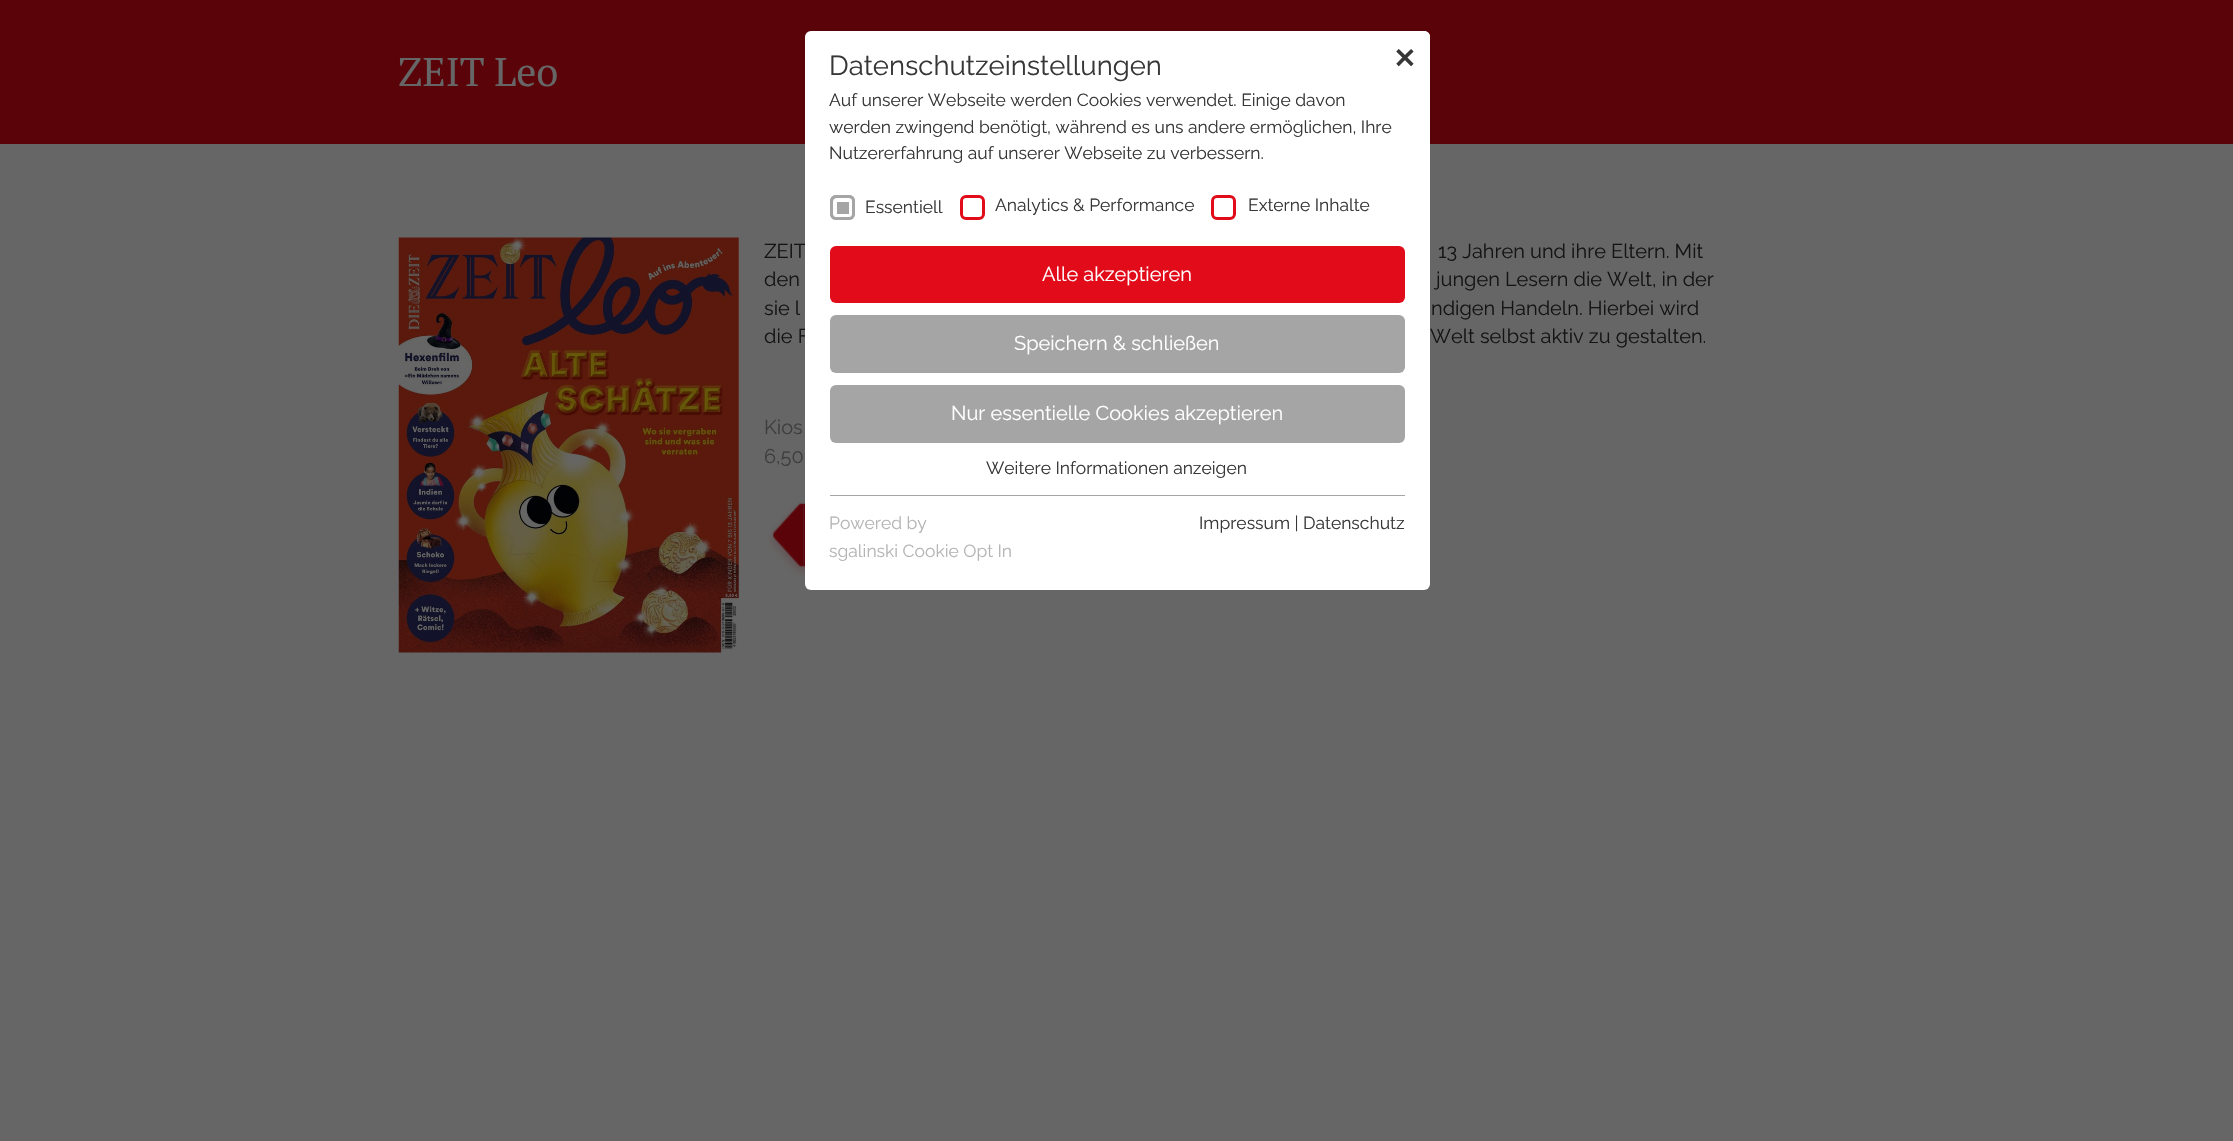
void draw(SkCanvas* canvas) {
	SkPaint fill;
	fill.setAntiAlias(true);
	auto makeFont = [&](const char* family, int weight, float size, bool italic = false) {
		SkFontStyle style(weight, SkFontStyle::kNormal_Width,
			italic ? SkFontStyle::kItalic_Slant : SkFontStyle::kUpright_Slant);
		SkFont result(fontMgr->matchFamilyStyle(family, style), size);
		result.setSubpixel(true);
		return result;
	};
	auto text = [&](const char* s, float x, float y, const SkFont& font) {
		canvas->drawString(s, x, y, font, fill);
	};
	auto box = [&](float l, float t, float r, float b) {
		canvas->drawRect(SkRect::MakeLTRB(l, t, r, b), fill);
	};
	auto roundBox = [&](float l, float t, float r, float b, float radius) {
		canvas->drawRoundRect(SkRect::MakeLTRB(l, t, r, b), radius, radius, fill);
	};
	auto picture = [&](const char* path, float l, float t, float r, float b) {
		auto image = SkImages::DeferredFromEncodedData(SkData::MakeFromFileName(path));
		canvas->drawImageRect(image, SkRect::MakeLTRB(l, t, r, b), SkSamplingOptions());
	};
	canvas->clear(0xFF666666);
	fill.setColor(0xFF5A040A);
	box(0, 0, 2233, 144);
	picture("image0.png", 398, 237, 739, 653);
	picture("image1.png", 803, 500, 805, 577);
	picture("image2.png", 768, 501, 804, 576);
	auto font1 = makeFont("PT Serif", 400, 40);
	fill.setColor(0xFF666666);
	text("ZEIT Leo", 398, 86, font1);
	auto font2 = makeFont("Raleway", 100, 20);
	fill.setColor(0xFF141414);
	text("ZEIT", 764, 258, font2);
	text("13 Jahren und ihre Eltern. Mit", 1438, 258, font2);
	text("den", 764, 286, font2);
	text("jungen Lesern die Welt, in der", 1436, 286, font2);
	text("sie l", 764, 315, font2);
	text("ndigen Handeln. Hierbei wird", 1431, 315, font2);
	text("die F", 764, 343, font2);
	text("Welt selbst aktiv zu gestalten.", 1430, 343, font2);
	fill.setColor(0xFFFFFFFF);
	roundBox(805, 31, 1430, 590, 6);
	canvas->drawPath(SkPathBuilder().moveTo(1379, 31).lineTo(1424, 31).cubicTo(1427.5f, 31, 1430, 33.5f, 1430, 37).lineTo(1430, 85).lineTo(1379, 85).close().detach(), fill);
	auto font3 = makeFont("DejaVu Sans", 700, 27.5f);
	fill.setColor(0xFF373737);
	text("✕", 1393, 68, font3);
	auto font4 = makeFont("Raleway", 100, 17.5f);
	fill.setColor(0xFFB4B4B4);
	text("sgalinski Cookie Opt In", 829, 557, font4);
	text("Powered by", 829, 529, font4);
	fill.setColor(0xFF373737);
	text("Weitere Informationen anzeigen", 986, 474, font4);
	fill.setColor(0xFFA5A5A5);
	roundBox(830, 385, 1405, 443, 6);
	fill.setColor(0xFFFFFFFF);
	text("Nur essentielle Cookies akzeptieren", 951, 420, font2);
	fill.setColor(0xFFA5A5A5);
	roundBox(830, 315, 1405, 373, 6);
	fill.setColor(0xFFFFFFFF);
	text("Speichern & schließen", 1014, 350, font2);
	fill.setColor(0xFFE20B1A);
	roundBox(830, 246, 1405, 303, 6);
	fill.setColor(0xFFFFFFFF);
	text("Alle akzeptieren", 1042, 281, font2);
	fill.setColor(0xFF373737);
	text("Externe Inhalte", 1248, 211, font4);
	fill.setStyle(SkPaint::kStroke_Style);
	fill.setStrokeWidth(3);
	fill.setColor(0xFFE20B1A);
	canvas->drawRoundRect(SkRect::MakeLTRB(1212.5f, 196.5f, 1234.5f, 218.5f), 4.5f, 4.5f, fill);
	fill.setStyle(SkPaint::kFill_Style);
	fill.setColor(0xFF373737);
	text("Analytics & Performance", 995, 211, font4);
	fill.setStyle(SkPaint::kStroke_Style);
	fill.setColor(0xFFE20B1A);
	canvas->drawRoundRect(SkRect::MakeLTRB(961.5f, 196.5f, 983.5f, 218.5f), 4.5f, 4.5f, fill);
	fill.setStyle(SkPaint::kFill_Style);
	fill.setColor(0xFF373737);
	text("Essentiell", 865, 213, font4);
	fill.setColor(0xFFA5A5A5);
	roundBox(830, 195, 855, 220, 6);
	fill.setStyle(SkPaint::kStroke_Style);
	fill.setStrokeWidth(4);
	fill.setColor(0xFFFFFFFF);
	canvas->drawRoundRect(SkRect::MakeLTRB(835, 200, 851, 216), 2, 2, fill);
	fill.setStrokeWidth(3);
	fill.setColor(0xFFA5A5A5);
	canvas->drawRoundRect(SkRect::MakeLTRB(831.5f, 196.5f, 853.5f, 218.5f), 4.5f, 4.5f, fill);
	fill.setStyle(SkPaint::kFill_Style);
	fill.setColor(0xFF373737);
	text("Nutzererfahrung auf unserer Webseite zu verbessern.", 829, 159, font4);
	text("werden zwingend benötigt, während es uns andere ermöglichen, Ihre", 829, 133, font4);
	text("Auf unserer Webseite werden Cookies verwendet. Einige davon", 829, 106, font4);
	auto font5 = makeFont("Raleway", 100, 27.5f);
	text("Datenschutzeinstellungen", 829, 75, font5);
	text("Impressum | Datenschutz", 1199, 529, font4);
	fill.setColor(0xFFA5A5A5);
	box(830, 495, 1405, 496);
	fill.setColor(0xFF3E3E3E);
	text("Kios", 764, 434, font2);
	text("6,50", 764, 463, font2);
}
